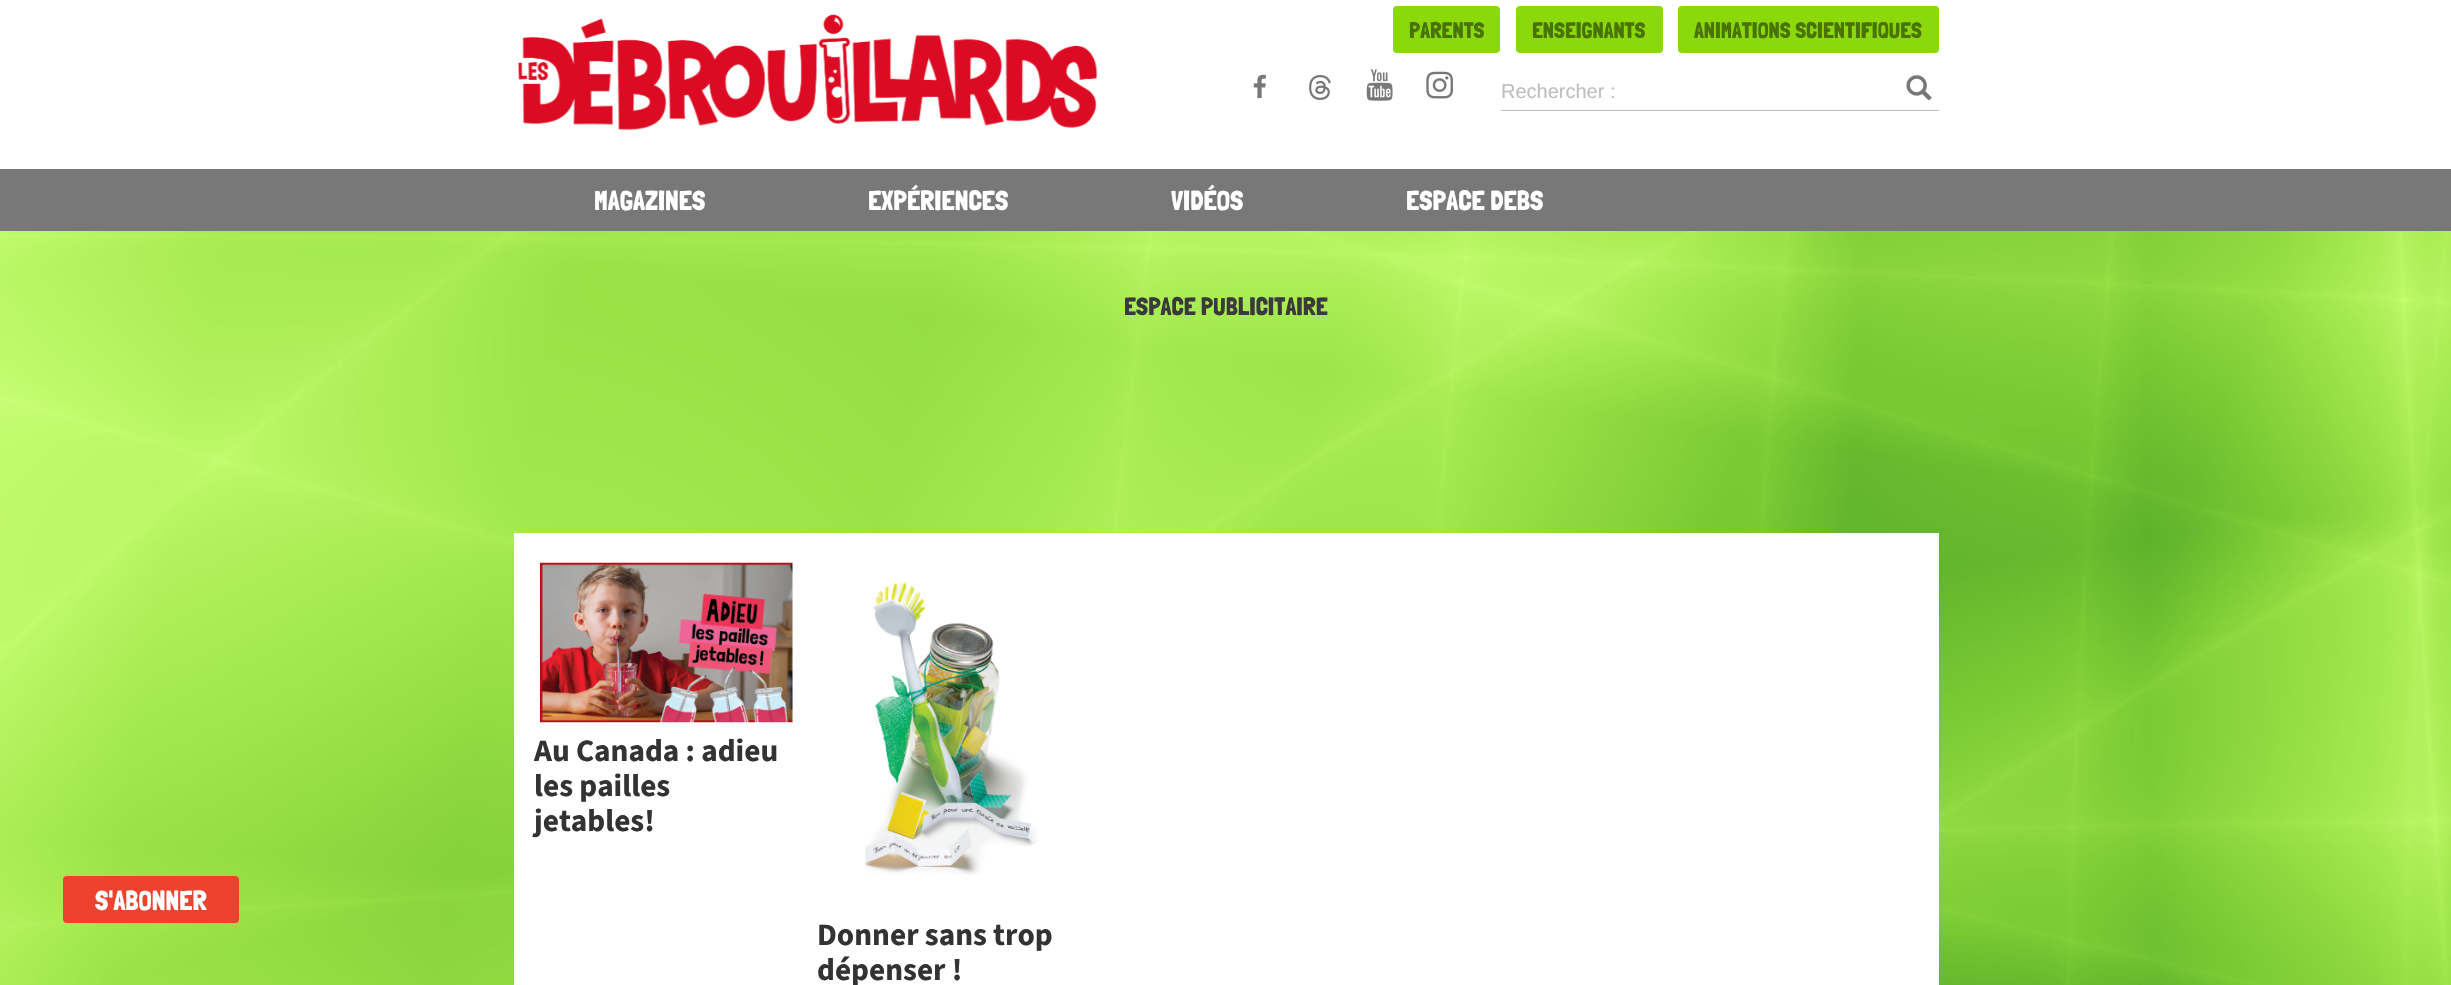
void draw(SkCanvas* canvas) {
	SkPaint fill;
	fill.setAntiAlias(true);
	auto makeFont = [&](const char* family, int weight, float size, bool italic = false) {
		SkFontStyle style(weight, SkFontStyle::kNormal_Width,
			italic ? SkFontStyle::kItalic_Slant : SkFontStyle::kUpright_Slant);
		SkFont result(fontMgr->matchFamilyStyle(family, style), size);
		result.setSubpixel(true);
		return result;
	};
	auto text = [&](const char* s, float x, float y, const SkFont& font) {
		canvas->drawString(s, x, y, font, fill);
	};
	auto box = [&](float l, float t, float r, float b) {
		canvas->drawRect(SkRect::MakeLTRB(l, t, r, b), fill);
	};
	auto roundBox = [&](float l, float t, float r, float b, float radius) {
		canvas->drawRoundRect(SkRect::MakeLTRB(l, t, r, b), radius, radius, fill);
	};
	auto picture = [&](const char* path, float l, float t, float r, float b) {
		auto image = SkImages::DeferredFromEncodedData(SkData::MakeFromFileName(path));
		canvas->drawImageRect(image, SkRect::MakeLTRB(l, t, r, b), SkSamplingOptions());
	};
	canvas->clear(0xFFFFFFFF);
	picture("image0.png", 0, 231, 2451, 985);
	fill.setColor(0xFF787878);
	box(0, 169, 2451, 231);
	picture("image1.png", 517, 14, 1098, 131);
	fill.setColor(0xFF8BD90A);
	roundBox(1393, 6, 1500, 53, 4);
	roundBox(1516, 6, 1663, 53, 4);
	roundBox(1678, 6, 1939, 53, 4);
	picture("image2.png", 1253, 74, 1266, 99);
	picture("image3.png", 1309, 75, 1331, 100);
	picture("image4.png", 1366, 69, 1393, 101);
	picture("image5.png", 1426, 71, 1453, 99);
	picture("image6.png", 1906, 75, 1932, 101);
	fill.setColor(0xFFBDBDBD);
	box(1501, 110, 1939, 111);
	fill.setColor(0xFFED422E);
	roundBox(63, 876, 239, 923, 4);
	fill.setColor(0xFFFFFFFF);
	box(514, 533, 1939, 985);
	picture("image7.png", 540, 562, 793, 723);
	picture("image8.png", 865, 582, 1037, 875);
	auto font1 = makeFont("Londrina Solid", 400, 22.5f);
	fill.setColor(0xFF497305);
	text("PARENTS", 1409, 38, font1);
	text("ENSEIGNANTS", 1532, 38, font1);
	text("ANIMATIONS SCIENTIFIQUES", 1694, 38, font1);
	auto font2 = makeFont("Liberation Sans", 400, 20);
	fill.setColor(0xFFBDBDBD);
	text("Rechercher :", 1501, 98, font2);
	auto font3 = makeFont("Londrina Solid", 400, 27.5f);
	fill.setColor(0xFFFFFFFF);
	text("MAGAZINES", 594, 210, font3);
	text("EXPÉRIENCES", 868, 210, font3);
	text("VIDÉOS", 1171, 210, font3);
	text("ESPACE DEBS", 1406, 210, font3);
	text("S'ABONNER", 95, 910, font3);
	auto font4 = makeFont("Londrina Solid", 400, 25);
	fill.setColor(0xFF3A3A3A);
	text("ESPACE PUBLICITAIRE", 1124, 315, font4);
	auto font5 = makeFont("Source Sans 3", 700, 31.25f);
	fill.setColor(0xFF333333);
	text("Au Canada : adieu", 534, 761, font5);
	text("les pailles", 534, 796, font5);
	text("jetables!", 534, 831, font5);
	text("Donner sans trop", 817, 945, font5);
	text("dépenser !", 817, 980, font5);
}
